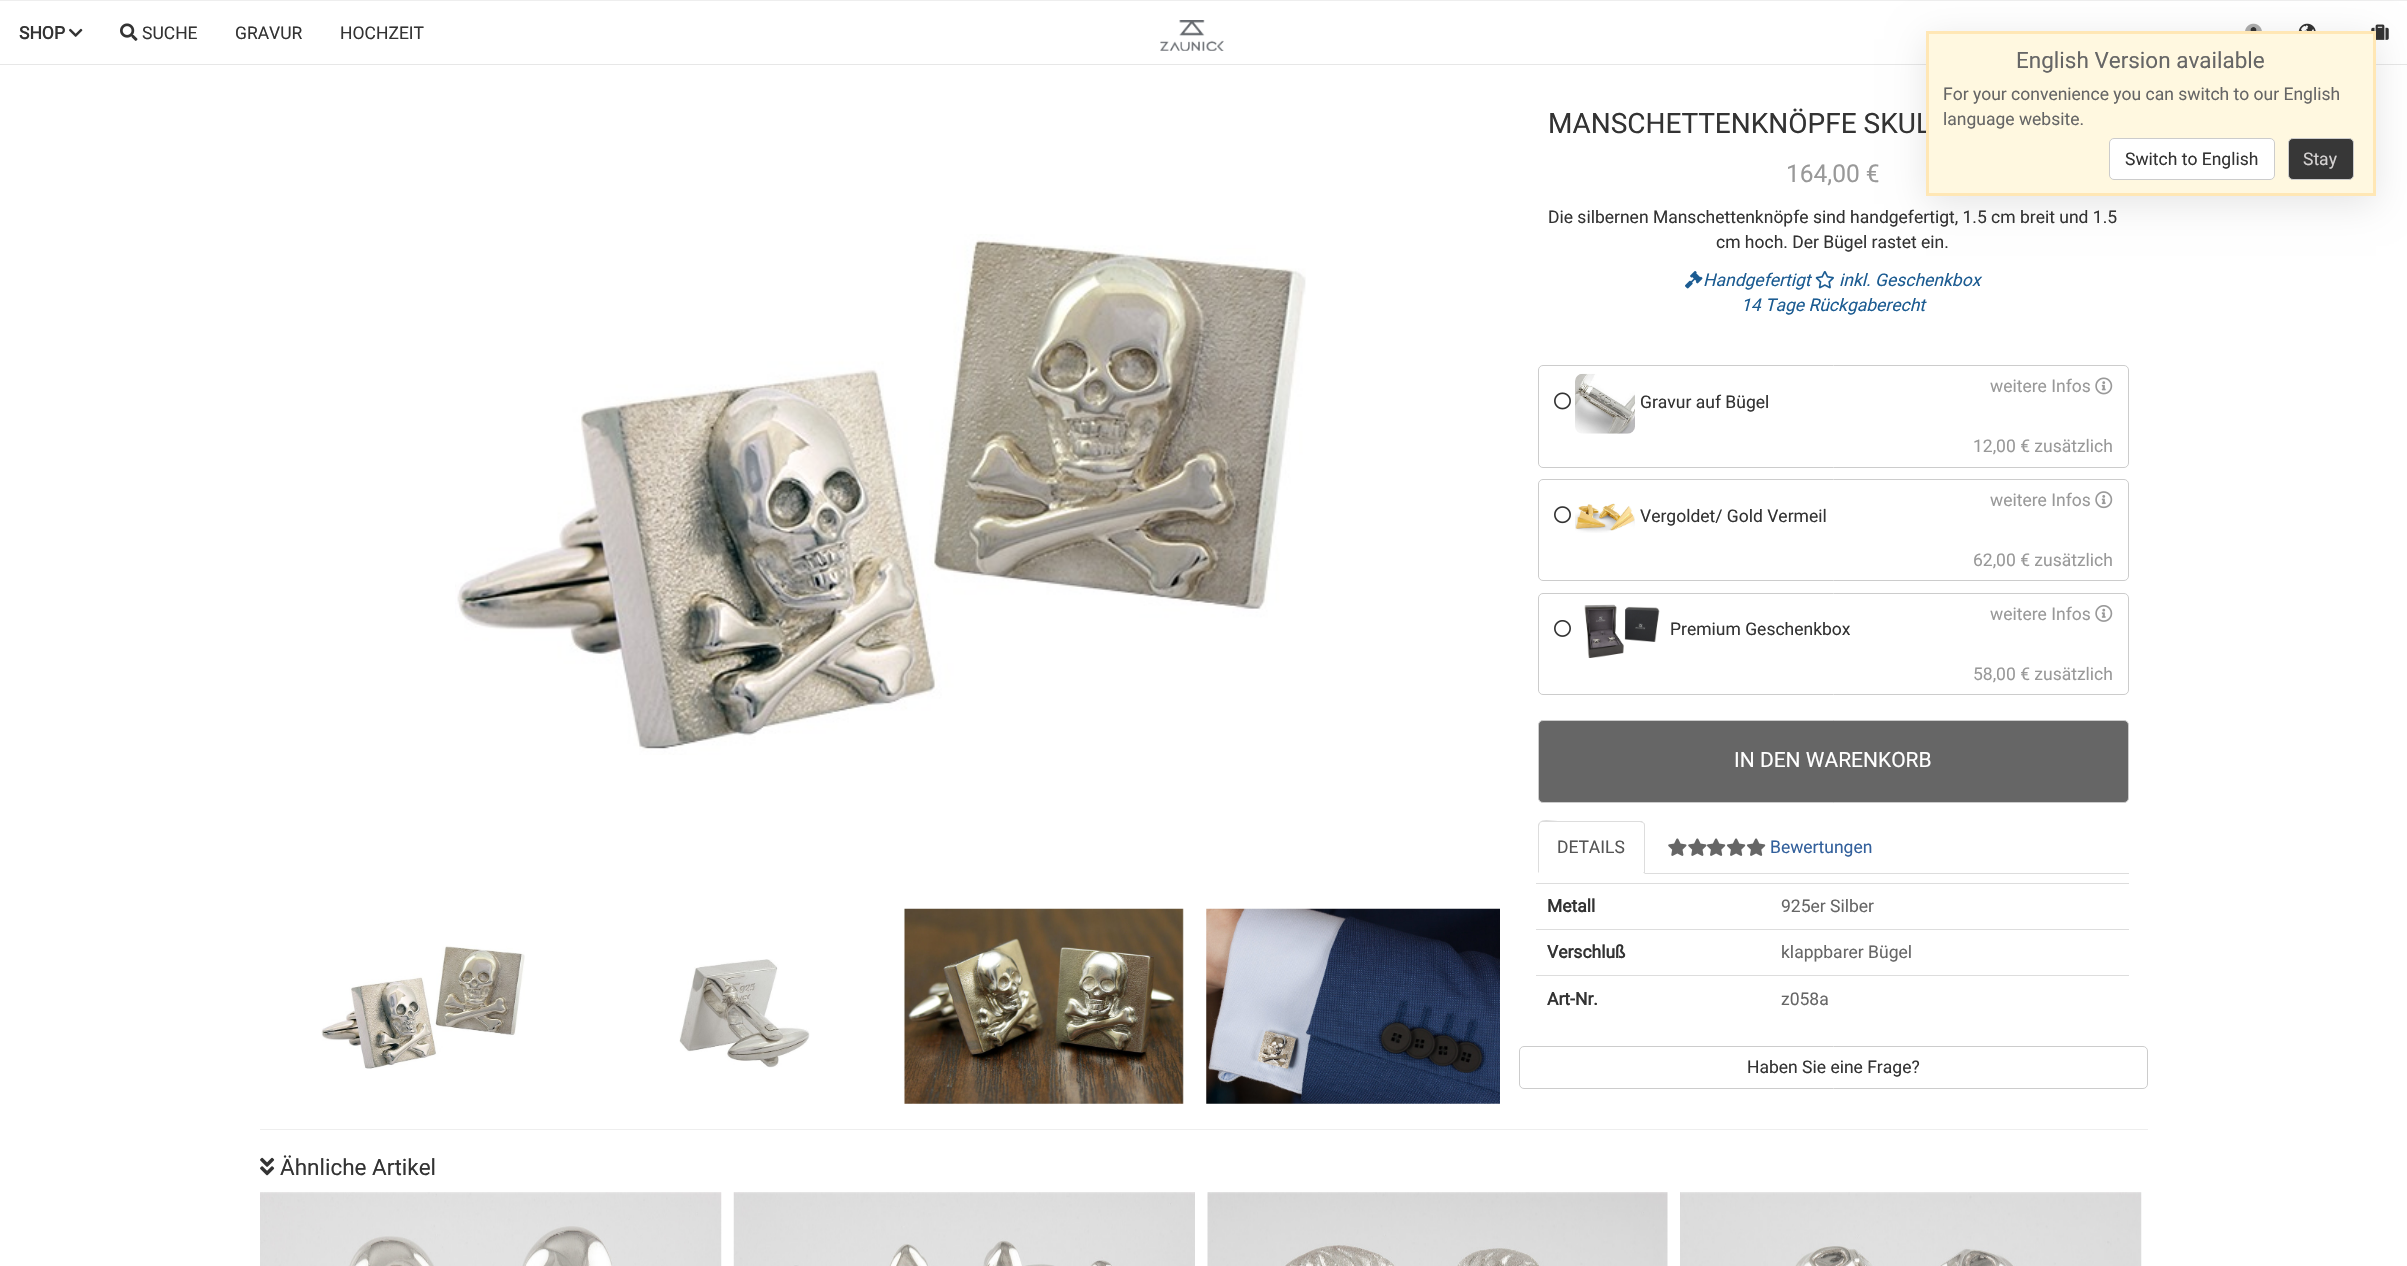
void draw(SkCanvas* canvas) {
	SkPaint fill;
	fill.setAntiAlias(true);
	auto makeFont = [&](const char* family, int weight, float size, bool italic = false) {
		SkFontStyle style(weight, SkFontStyle::kNormal_Width,
			italic ? SkFontStyle::kItalic_Slant : SkFontStyle::kUpright_Slant);
		SkFont result(fontMgr->matchFamilyStyle(family, style), size);
		result.setSubpixel(true);
		return result;
	};
	auto text = [&](const char* s, float x, float y, const SkFont& font) {
		canvas->drawString(s, x, y, font, fill);
	};
	auto box = [&](float l, float t, float r, float b) {
		canvas->drawRect(SkRect::MakeLTRB(l, t, r, b), fill);
	};
	auto picture = [&](const char* path, float l, float t, float r, float b) {
		auto image = SkImages::DeferredFromEncodedData(SkData::MakeFromFileName(path));
		canvas->drawImageRect(image, SkRect::MakeLTRB(l, t, r, b), SkSamplingOptions());
	};
	canvas->clear(0xFFFFFFFF);
	fill.setColor(0xFFEEEEEE);
	box(0, 0, 2407, 1);
	fill.setColor(0xFFE7E7E7);
	box(0, 64, 2407, 65);
	picture("image0.png", 69, 28, 83, 37);
	picture("image1.png", 120, 23, 138, 41);
	picture("image3.png", 2250, 27, 2257, 31);
	picture("image2.png", 2245, 23, 2262, 31);
	picture("image4.png", 2298, 23, 2316, 31);
	picture("image5.png", 1160, 20, 1224, 51);
	picture("image6.png", 2371, 24, 2389, 40);
	picture("image7.png", 455, 234, 1306, 755);
	picture("image8.png", 321, 945, 525, 1069);
	picture("image9.png", 679, 959, 810, 1068);
	picture("image10.png", 903, 908, 1184, 1104);
	picture("image11.png", 1206, 908, 1500, 1104);
	picture("image12.png", 1685, 271, 1703, 289);
	picture("image13.png", 1815, 271, 1834, 289);
	fill.setStyle(SkPaint::kStroke_Style);
	fill.setStrokeWidth(1);
	fill.setColor(0xFFCCCCCC);
	canvas->drawRoundRect(SkRect::MakeLTRB(1538.5f, 365.5f, 2128.5f, 467.5f), 4.5f, 4.5f, fill);
	picture("image14.png", 1554, 392, 1571, 410);
	picture("image15.png", 1575, 373, 1635, 434);
	picture("image16.png", 2095, 377, 2113, 395);
	canvas->drawRoundRect(SkRect::MakeLTRB(1538.5f, 479.5f, 2128.5f, 580.5f), 4.5f, 4.5f, fill);
	picture("image17.png", 1554, 506, 1571, 524);
	picture("image18.png", 1575, 503, 1635, 533);
	picture("image19.png", 2095, 491, 2113, 509);
	canvas->drawRoundRect(SkRect::MakeLTRB(1538.5f, 593.5f, 2128.5f, 694.5f), 4.5f, 4.5f, fill);
	picture("image20.png", 1554, 620, 1571, 637);
	picture("image21.png", 1584, 604, 1660, 659);
	picture("image22.png", 2095, 605, 2113, 622);
	fill.setStyle(SkPaint::kFill_Style);
	fill.setColor(0xFF666666);
	canvas->drawRoundRect(SkRect::MakeLTRB(1538.5f, 720.5f, 2128.5f, 802.5f), 4.5f, 4.5f, fill);
	fill.setStyle(SkPaint::kStroke_Style);
	fill.setColor(0xFFCCCCCC);
	canvas->drawRoundRect(SkRect::MakeLTRB(1538.5f, 720.5f, 2128.5f, 802.5f), 4.5f, 4.5f, fill);
	fill.setStyle(SkPaint::kFill_Style);
	fill.setColor(0xFFDDDDDD);
	box(1645, 873, 2129, 874);
	canvas->drawPath(SkPathBuilder().moveTo(1542, 822).cubicTo(1541, 822, 1540, 823, 1540, 823).lineTo(1539, 823).cubicTo(1543, 818, 1551, 821, 1558, 821).lineTo(1642, 821).lineTo(1644, 823).lineTo(1643, 823).lineTo(1640, 822).close().detach(), fill);
	canvas->drawPath(SkPathBuilder().moveTo(1645, 874).lineTo(1645, 826).cubicTo(1645, 825, 1645, 823, 1644, 823).lineTo(1643, 823).cubicTo(1644, 824, 1644, 825, 1644, 826).lineTo(1644, 872).lineTo(1643, 872).close().detach(), fill);
	canvas->drawPath(SkPathBuilder().moveTo(1538, 873).lineTo(1538, 826).cubicTo(1538, 825, 1538, 824, 1539, 823).lineTo(1540, 823).lineTo(1539, 826).lineTo(1539, 872).close().detach(), fill);
	picture("image23.png", 1668, 838, 1687, 856);
	picture("image23.png", 1688, 838, 1707, 856);
	picture("image24.png", 1707, 838, 1726, 856);
	picture("image24.png", 1727, 838, 1746, 856);
	picture("image24.png", 1747, 838, 1766, 856);
	box(1536, 883, 2129, 884);
	box(1536, 929, 2129, 930);
	box(1536, 975, 2129, 976);
	fill.setStyle(SkPaint::kStroke_Style);
	fill.setColor(0xFFCCCCCC);
	canvas->drawRoundRect(SkRect::MakeLTRB(1519.5f, 1046.5f, 2147.5f, 1088.5f), 4.5f, 4.5f, fill);
	fill.setStyle(SkPaint::kFill_Style);
	fill.setColor(0xFFEEEEEE);
	box(260, 1129, 2148, 1130);
	picture("image25.png", 260, 1157, 275, 1176);
	picture("image26.png", 260, 1192, 722, 1266);
	picture("image27.png", 733, 1192, 1195, 1266);
	picture("image28.png", 1207, 1192, 1668, 1266);
	picture("image29.png", 1680, 1192, 2142, 1266);
	fill.setColor(0x1A000000);
	fill.setMaskFilter(SkMaskFilter::MakeBlur(kNormal_SkBlurStyle, 17.5f));
	canvas->drawRect(SkRect::MakeLTRB(1926, 39, 2376, 204), fill);
	fill.setMaskFilter(nullptr);
	auto font1 = makeFont("Roboto", 700, 17.5f);
	fill.setColor(0xFF333333);
	text("SHOP", 19, 39, font1);
	auto font2 = makeFont("Roboto", 400, 17.5f);
	text("SUCHE", 142, 39, font2);
	text("GRAVUR", 235, 39, font2);
	text("HOCHZEIT", 340, 39, font2);
	auto font3 = makeFont("Roboto", 400, 28);
	text("MANSCHETTENKNÖPFE SKUL", 1548, 133, font3);
	auto font4 = makeFont("Roboto", 400, 24.5f);
	fill.setColor(0xFF999999);
	text("164,00 €", 1786, 182, font4);
	fill.setColor(0xFF333333);
	text("Die silbernen Manschettenknöpfe sind handgefertigt, 1.5 cm breit und 1.5", 1548, 223, font2);
	text("cm hoch. Der Bügel rastet ein.", 1716, 248, font2);
	auto font5 = makeFont("Roboto", 400, 17.5f, true);
	fill.setColor(0xFF1C5C92);
	text("Handgefertigt", 1703, 286, font5);
	text("inkl. Geschenkbox", 1839, 286, font5);
	text("14 Tage Rückgaberecht", 1741, 311, font5);
	fill.setColor(0xFF999999);
	text("weitere Infos", 1990, 392, font2);
	fill.setColor(0xFF333333);
	text("Gravur auf Bügel", 1640, 408, font2);
	fill.setColor(0xFF999999);
	text("12,00 € zusätzlich", 1973, 452, font2);
	text("weitere Infos", 1990, 506, font2);
	fill.setColor(0xFF333333);
	text("Vergoldet/ Gold Vermeil", 1640, 522, font2);
	fill.setColor(0xFF999999);
	text("62,00 € zusätzlich", 1973, 566, font2);
	text("weitere Infos", 1990, 620, font2);
	fill.setColor(0xFF333333);
	text("Premium Geschenkbox", 1670, 635, font2);
	fill.setColor(0xFF999999);
	text("58,00 € zusätzlich", 1973, 680, font2);
	auto font6 = makeFont("Roboto", 400, 21);
	fill.setColor(0xFFFFFFFF);
	text("IN DEN WARENKORB", 1734, 767, font6);
	fill.setColor(0xFF555555);
	text("DETAILS", 1557, 853, font2);
	fill.setColor(0xFF32609C);
	text("Bewertungen", 1770, 853, font2);
	fill.setColor(0xFF333333);
	text("Metall", 1547, 912, font1);
	fill.setColor(0xFF666666);
	text("925er Silber", 1781, 912, font2);
	fill.setColor(0xFF333333);
	text("Verschluß", 1547, 958, font1);
	fill.setColor(0xFF666666);
	text("klappbarer Bügel", 1781, 958, font2);
	fill.setColor(0xFF333333);
	text("Art-Nr.", 1547, 1005, font1);
	fill.setColor(0xFF666666);
	text("z058a", 1781, 1005, font2);
	fill.setColor(0xFF333333);
	text("Haben Sie eine Frage?", 1747, 1073, font2);
	auto font7 = makeFont("Roboto", 400, 22.5f);
	text("Ähnliche Artikel", 280, 1175, font7);
	fill.setColor(0xFFFFF8E0);
	canvas->drawRect(SkRect::MakeLTRB(1927.5f, 32.5f, 2374.5f, 194.5f), fill);
	fill.setStyle(SkPaint::kStroke_Style);
	fill.setStrokeWidth(3);
	fill.setColor(0xFFFFE7B5);
	canvas->drawRect(SkRect::MakeLTRB(1927.5f, 32.5f, 2374.5f, 194.5f), fill);
	fill.setStyle(SkPaint::kFill_Style);
	fill.setColor(0xFF666666);
	text("English Version available", 2016, 68, font7);
	text("For your convenience you can switch to our English", 1943, 100, font2);
	text("language website.", 1943, 125, font2);
	fill.setColor(0xFFFFFFFF);
	canvas->drawRoundRect(SkRect::MakeLTRB(2109.5f, 138.5f, 2274.5f, 179.5f), 4.5f, 4.5f, fill);
	fill.setStyle(SkPaint::kStroke_Style);
	fill.setStrokeWidth(1);
	fill.setColor(0xFFCCCCCC);
	canvas->drawRoundRect(SkRect::MakeLTRB(2109.5f, 138.5f, 2274.5f, 179.5f), 4.5f, 4.5f, fill);
	fill.setStyle(SkPaint::kFill_Style);
	fill.setColor(0xFF333333);
	text("Switch to English", 2125, 165, font2);
	fill.setColor(0xFF373737);
	canvas->drawRoundRect(SkRect::MakeLTRB(2288.5f, 138.5f, 2353.5f, 179.5f), 4.5f, 4.5f, fill);
	fill.setStyle(SkPaint::kStroke_Style);
	fill.setColor(0xFFCCCCCC);
	canvas->drawRoundRect(SkRect::MakeLTRB(2288.5f, 138.5f, 2353.5f, 179.5f), 4.5f, 4.5f, fill);
	fill.setStyle(SkPaint::kFill_Style);
	fill.setColor(0xFFD5D2D2);
	text("Stay", 2303, 165, font2);
}
